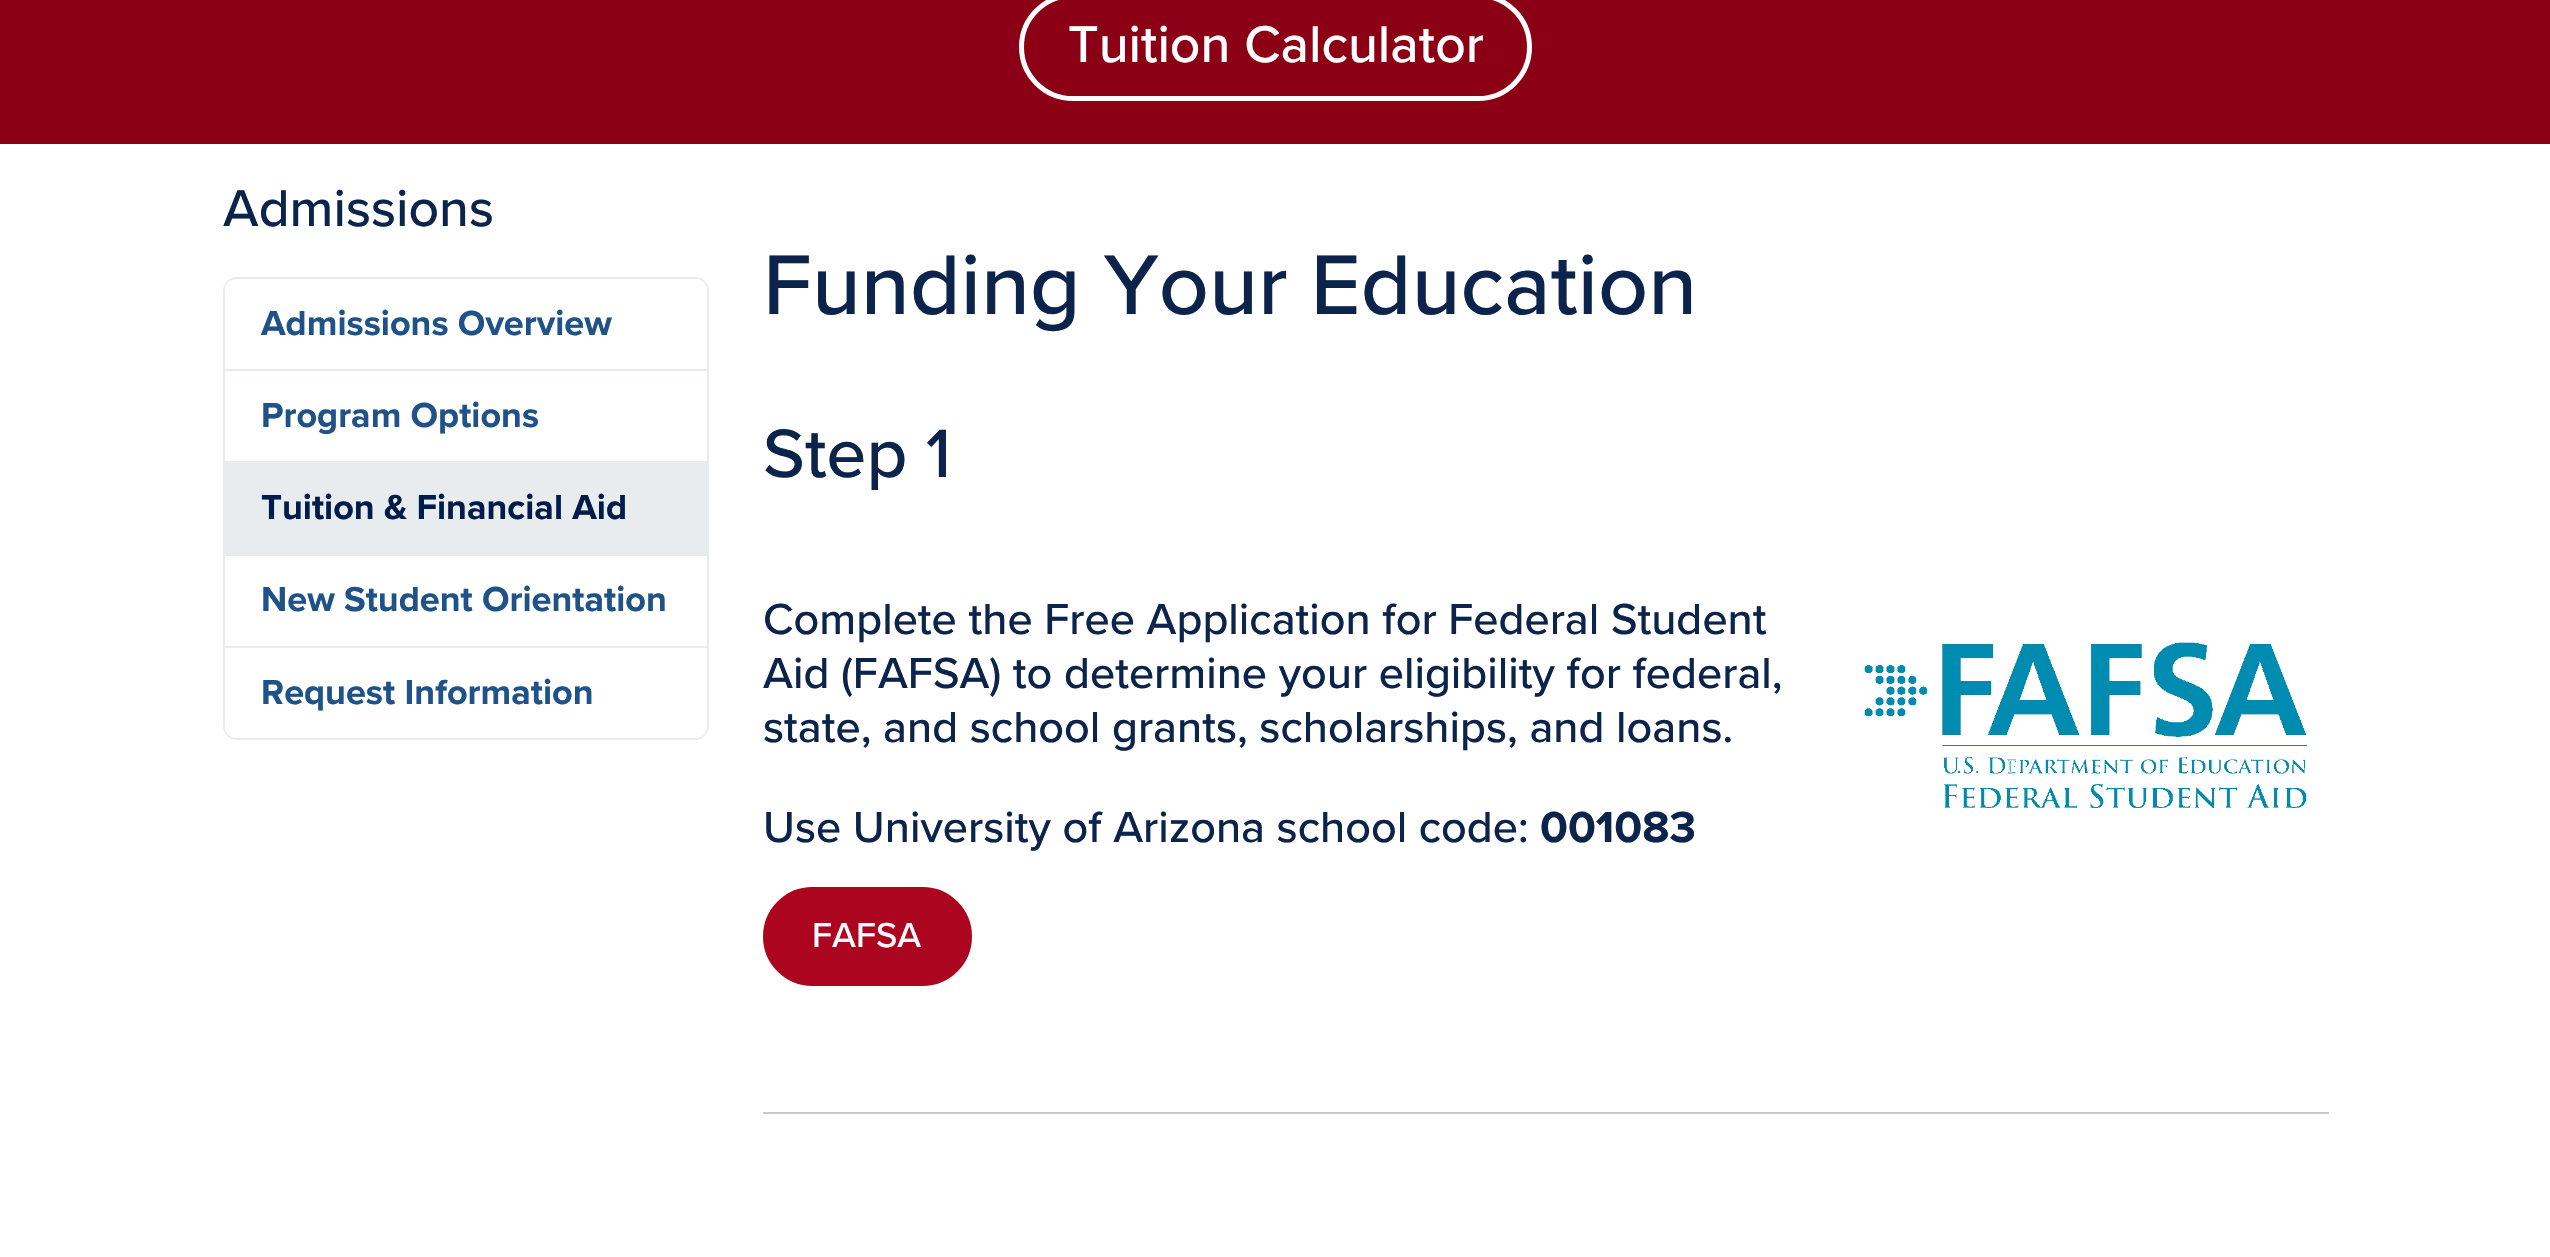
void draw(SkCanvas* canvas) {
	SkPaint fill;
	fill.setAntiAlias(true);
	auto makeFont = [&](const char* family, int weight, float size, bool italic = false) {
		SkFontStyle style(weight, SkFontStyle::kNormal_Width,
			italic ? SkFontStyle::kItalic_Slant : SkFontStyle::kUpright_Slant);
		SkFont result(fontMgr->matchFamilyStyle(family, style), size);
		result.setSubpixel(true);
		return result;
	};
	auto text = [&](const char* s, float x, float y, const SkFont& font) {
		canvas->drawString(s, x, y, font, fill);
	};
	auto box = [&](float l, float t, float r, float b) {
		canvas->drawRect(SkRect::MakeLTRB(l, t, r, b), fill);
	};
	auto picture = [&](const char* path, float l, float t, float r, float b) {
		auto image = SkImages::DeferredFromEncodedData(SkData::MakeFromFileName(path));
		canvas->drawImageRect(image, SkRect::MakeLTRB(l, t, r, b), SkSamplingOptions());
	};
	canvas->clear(0xFFFFFFFF);
	fill.setStyle(SkPaint::kStroke_Style);
	fill.setStrokeWidth(2);
	fill.setColor(0xFFE9ECEF);
	canvas->drawRect(SkRect::MakeLTRB(224, 370, 708, 463), fill);
	canvas->drawPath(SkPathBuilder().moveTo(237, 278).lineTo(695, 278).cubicTo(702, 278, 708, 284, 708, 291).lineTo(708, 370).lineTo(224, 370).lineTo(224, 291).cubicTo(224, 284, 230, 278, 237, 278).close().detach(), fill);
	fill.setStyle(SkPaint::kFill_Style);
	fill.setColor(0xFFFFFFFF);
	canvas->drawPath(SkPathBuilder().moveTo(236, 279).lineTo(696, 279).cubicTo(702, 279, 707, 284, 707, 290).lineTo(707, 369).lineTo(225, 369).lineTo(225, 290).cubicTo(225, 284, 230, 279, 236, 279).close().detach(), fill);
	fill.setStyle(SkPaint::kStroke_Style);
	fill.setColor(0xFFE9ECEF);
	canvas->drawRect(SkRect::MakeLTRB(224, 462, 708, 555), fill);
	fill.setStyle(SkPaint::kFill_Style);
	box(225, 464, 707, 554);
	fill.setStyle(SkPaint::kStroke_Style);
	canvas->drawRect(SkRect::MakeLTRB(224, 555, 708, 647), fill);
	canvas->drawPath(SkPathBuilder().moveTo(224, 647).lineTo(708, 647).lineTo(708, 726).cubicTo(708, 733, 702, 739, 695, 739).lineTo(237, 739).cubicTo(230, 739, 224, 733, 224, 726).close().detach(), fill);
	fill.setStyle(SkPaint::kFill_Style);
	fill.setColor(0xFFFFFFFF);
	canvas->drawPath(SkPathBuilder().moveTo(225, 648).lineTo(707, 648).lineTo(707, 727).cubicTo(707, 733, 702, 738, 696, 738).lineTo(236, 738).cubicTo(230, 738, 225, 733, 225, 727).close().detach(), fill);
	fill.setColor(0xFF8B0015);
	box(0, 0, 2550, 144);
	fill.setStyle(SkPaint::kStroke_Style);
	fill.setStrokeWidth(5);
	fill.setColor(0xFFFFFFFF);
	canvas->drawRoundRect(SkRect::MakeLTRB(1021.5f, -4.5f, 1529.5f, 98.5f), 51.5f, 51.5f, fill);
	fill.setStyle(SkPaint::kFill_Style);
	fill.setColor(0xFFAB0520);
	canvas->drawRoundRect(SkRect::MakeLTRB(765.5f, 889.5f, 969.5f, 983.5f), 47, 47, fill);
	fill.setStyle(SkPaint::kStroke_Style);
	canvas->drawRoundRect(SkRect::MakeLTRB(765.5f, 889.5f, 969.5f, 983.5f), 47, 47, fill);
	picture("image0.png", 1864, 642, 2307, 808);
	fill.setStyle(SkPaint::kFill_Style);
	fill.setColor(0xFFC8C9CA);
	box(763, 1112, 2329, 1114);
	auto font1 = makeFont("Proxima Nova", 500, 53.5f);
	fill.setColor(0xFF0C234B);
	text("Admissions", 223, 226, font1);
	auto font2 = makeFont("Proxima Nova", 700, 36);
	fill.setColor(0xFF1E5288);
	text("Admissions Overview", 261, 335, font2);
	text("Program Options", 261, 427, font2);
	fill.setColor(0xFF001C48);
	text("Tuition & Financial Aid", 261, 519, font2);
	fill.setColor(0xFF1E5288);
	text("New Student Orientation", 261, 611, font2);
	text("Request Information", 261, 704, font2);
	fill.setColor(0xFFFFFFFF);
	text("Tuition Calculator", 1068, 62, font1);
	auto font3 = makeFont("Proxima Nova", 500, 87.75f);
	fill.setColor(0xFF0C234B);
	text("Funding Your Education", 763, 314, font3);
	auto font4 = makeFont("Proxima Nova", 500, 71);
	text("Step 1", 763, 477, font4);
	auto font5 = makeFont("Proxima Nova", 500, 45);
	text("Complete the Free Application for Federal Student", 763, 634, font5);
	text("Aid (FAFSA) to determine your eligibility for federal,", 763, 688, font5);
	text("state, and school grants, scholarships, and loans.", 763, 742, font5);
	text("Use University of Arizona school code:", 763, 842, font5);
	auto font6 = makeFont("Proxima Nova", 700, 45);
	text("001083", 1540, 842, font6);
	auto font7 = makeFont("Proxima Nova", 500, 36);
	fill.setColor(0xFFFFFFFF);
	text("FAFSA", 812, 947, font7);
}
